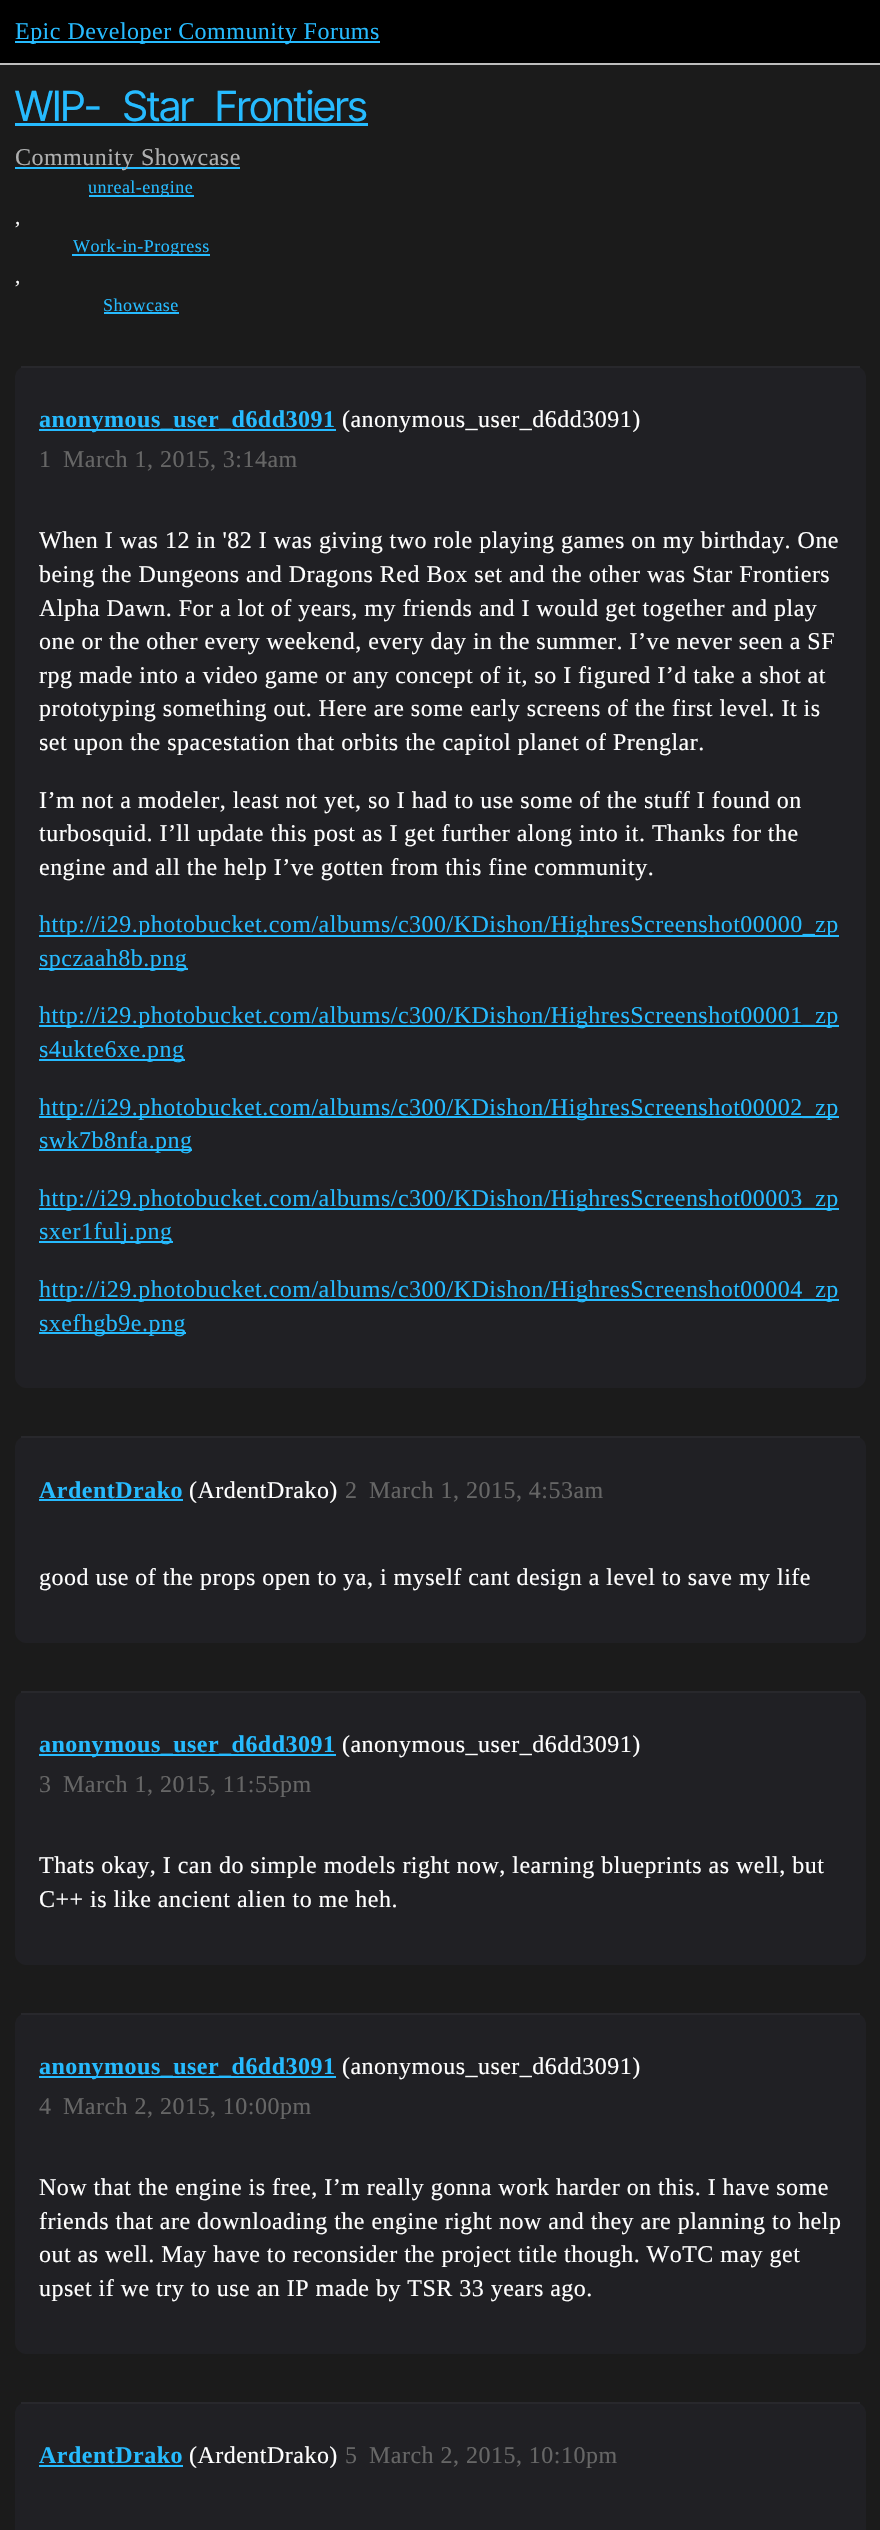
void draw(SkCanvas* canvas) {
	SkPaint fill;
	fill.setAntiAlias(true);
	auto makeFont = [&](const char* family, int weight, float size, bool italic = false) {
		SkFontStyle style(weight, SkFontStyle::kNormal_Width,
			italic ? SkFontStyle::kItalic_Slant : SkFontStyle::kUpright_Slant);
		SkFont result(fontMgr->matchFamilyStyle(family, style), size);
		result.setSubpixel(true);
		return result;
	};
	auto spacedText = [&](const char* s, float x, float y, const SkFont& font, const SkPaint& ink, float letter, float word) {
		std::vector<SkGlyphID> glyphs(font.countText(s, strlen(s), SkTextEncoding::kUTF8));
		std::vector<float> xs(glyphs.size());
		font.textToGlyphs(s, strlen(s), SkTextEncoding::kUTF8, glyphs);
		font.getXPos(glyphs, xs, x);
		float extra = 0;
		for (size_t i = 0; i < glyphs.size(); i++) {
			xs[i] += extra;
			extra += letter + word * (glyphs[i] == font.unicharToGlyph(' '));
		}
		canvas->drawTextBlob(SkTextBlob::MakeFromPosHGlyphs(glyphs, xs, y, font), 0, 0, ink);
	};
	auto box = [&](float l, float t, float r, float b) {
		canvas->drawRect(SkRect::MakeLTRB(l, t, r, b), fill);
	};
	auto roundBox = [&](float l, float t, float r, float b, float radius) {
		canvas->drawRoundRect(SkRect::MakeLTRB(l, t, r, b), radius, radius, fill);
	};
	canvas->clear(0xFF1B1B1B);
	fill.setColor(0xFF000000);
	box(0, 0, 880, 63);
	fill.setColor(0xFFBDBDBD);
	box(0, 63, 880, 65);
	fill.setColor(0xFF26BBFF);
	box(15, 41, 380, 43);
	box(15, 123, 368, 126);
	box(15, 167, 240, 169);
	box(89, 195, 194, 197);
	box(72, 254, 210, 256);
	box(104, 312, 179, 314);
	fill.setColor(0xFF202024);
	roundBox(15, 366, 866, 1388, 12);
	fill.setColor(0xFF28282C);
	box(21, 366, 860, 368);
	fill.setColor(0xFF26BBFF);
	box(39, 429, 336, 431);
	box(39, 935, 839, 937);
	box(39, 968, 188, 970);
	box(39, 1025, 839, 1027);
	box(39, 1059, 185, 1061);
	box(39, 1116, 839, 1118);
	box(39, 1149, 192, 1151);
	box(39, 1208, 839, 1210);
	box(39, 1241, 173, 1243);
	box(39, 1299, 839, 1301);
	box(39, 1332, 186, 1334);
	fill.setColor(0xFF202024);
	roundBox(15, 1436, 866, 1643, 12);
	fill.setColor(0xFF28282C);
	box(21, 1436, 860, 1438);
	fill.setColor(0xFF26BBFF);
	box(39, 1499, 183, 1501);
	fill.setColor(0xFF202024);
	roundBox(15, 1691, 866, 1965, 12);
	fill.setColor(0xFF28282C);
	box(21, 1691, 860, 1693);
	fill.setColor(0xFF26BBFF);
	box(39, 1754, 336, 1756);
	fill.setColor(0xFF202024);
	roundBox(15, 2013, 866, 2354, 12);
	fill.setColor(0xFF28282C);
	box(21, 2013, 860, 2015);
	fill.setColor(0xFF26BBFF);
	box(39, 2076, 336, 2078);
	fill.setColor(0xFF202024);
	roundBox(15, 2402, 866, 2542, 12);
	fill.setColor(0xFF28282C);
	box(21, 2402, 860, 2404);
	fill.setColor(0xFF26BBFF);
	box(39, 2465, 183, 2467);
	auto font1 = makeFont("Liberation Serif", 400, 24);
	spacedText("Epic Developer Community Forums", 15, 39, font1, fill, 0.48f, 0);
	auto font2 = makeFont("Inter Tight", 400, 41.75f);
	spacedText("WIP- Star Frontiers", 15, 121, font2, fill, -0.75f, 13);
	fill.setColor(0xFFAFB0B0);
	spacedText("Community", 15, 165, font1, fill, 0.48f, 0);
	spacedText("Showcase", 141, 165, font1, fill, 0.48f, 0);
	auto font3 = makeFont("Liberation Serif", 400, 18);
	fill.setColor(0xFF26BBFF);
	spacedText("unreal-engine", 88, 193, font3, fill, 0.48f, 0);
	auto font4 = makeFont("Liberation Serif", 400, 21);
	fill.setColor(0xFFFFFFFF);
	spacedText(",", 15, 224, font4, fill, 0.48f, 0);
	fill.setColor(0xFF26BBFF);
	spacedText("Work-in-Progress", 73, 252, font3, fill, 0.48f, 0);
	fill.setColor(0xFFFFFFFF);
	spacedText(",", 15, 283, font4, fill, 0.48f, 0);
	fill.setColor(0xFF26BBFF);
	spacedText("Showcase", 103, 311, font3, fill, 0.48f, 0);
	auto font5 = makeFont("Liberation Serif", 700, 24);
	spacedText("anonymous_user_d6dd3091", 39, 427, font5, fill, 0.48f, 0);
	fill.setColor(0xFFFFFFFF);
	spacedText("(anonymous_user_d6dd3091)", 342, 427, font1, fill, 0.48f, 0);
	fill.setColor(0xFF666666);
	spacedText("1", 39, 467, font1, fill, 0.48f, 0);
	spacedText("March 1, 2015, 3:14am", 63, 467, font1, fill, 0.48f, 0);
	fill.setColor(0xFFFFFFFF);
	spacedText("When I was 12 in '82 I was giving two role playing games on my birthday. One", 39, 548, font1, fill, 0.48f, 0);
	spacedText("being the Dungeons and Dragons Red Box set and the other was Star Frontiers", 39, 582, font1, fill, 0.48f, 0);
	spacedText("Alpha Dawn. For a lot of years, my friends and I would get together and play", 39, 616, font1, fill, 0.48f, 0);
	spacedText("one or the other every weekend, every day in the summer. I’ve never seen a SF", 39, 649, font1, fill, 0.48f, 0);
	spacedText("rpg made into a video game or any concept of it, so I figured I’d take a shot at", 39, 683, font1, fill, 0.48f, 0);
	spacedText("prototyping something out. Here are some early screens of the first level. It is", 39, 716, font1, fill, 0.48f, 0);
	spacedText("set upon the spacestation that orbits the capitol planet of Prenglar.", 39, 750, font1, fill, 0.48f, 0);
	spacedText("I’m not a modeler, least not yet, so I had to use some of the stuff I found on", 39, 808, font1, fill, 0.48f, 0);
	spacedText("turbosquid. I’ll update this post as I get further along into it. Thanks for the", 39, 841, font1, fill, 0.48f, 0);
	spacedText("engine and all the help I’ve gotten from this fine community.", 39, 875, font1, fill, 0.48f, 0);
	fill.setColor(0xFF26BBFF);
	spacedText("http://i29.photobucket.com/albums/c300/KDishon/HighresScreenshot00000_zp", 39, 932, font1, fill, 0.48f, 0);
	spacedText("spczaah8b.png", 39, 966, font1, fill, 0.48f, 0);
	spacedText("http://i29.photobucket.com/albums/c300/KDishon/HighresScreenshot00001_zp", 39, 1023, font1, fill, 0.48f, 0);
	spacedText("s4ukte6xe.png", 39, 1057, font1, fill, 0.48f, 0);
	spacedText("http://i29.photobucket.com/albums/c300/KDishon/HighresScreenshot00002_zp", 39, 1115, font1, fill, 0.48f, 0);
	spacedText("swk7b8nfa.png", 39, 1148, font1, fill, 0.48f, 0);
	spacedText("http://i29.photobucket.com/albums/c300/KDishon/HighresScreenshot00003_zp", 39, 1206, font1, fill, 0.48f, 0);
	spacedText("sxer1fulj.png", 39, 1239, font1, fill, 0.48f, 0);
	spacedText("http://i29.photobucket.com/albums/c300/KDishon/HighresScreenshot00004_zp", 39, 1297, font1, fill, 0.48f, 0);
	spacedText("sxefhgb9e.png", 39, 1331, font1, fill, 0.48f, 0);
	spacedText("ArdentDrako", 39, 1498, font5, fill, 0.48f, 0);
	fill.setColor(0xFFFFFFFF);
	spacedText("(ArdentDrako)", 189, 1498, font1, fill, 0.48f, 0);
	fill.setColor(0xFF666666);
	spacedText("2", 345, 1498, font1, fill, 0.48f, 0);
	spacedText("March 1, 2015, 4:53am", 369, 1498, font1, fill, 0.48f, 0);
	fill.setColor(0xFFFFFFFF);
	spacedText("good use of the props open to ya, i myself cant design a level to save my life", 39, 1585, font1, fill, 0.48f, 0);
	fill.setColor(0xFF26BBFF);
	spacedText("anonymous_user_d6dd3091", 39, 1752, font5, fill, 0.48f, 0);
	fill.setColor(0xFFFFFFFF);
	spacedText("(anonymous_user_d6dd3091)", 342, 1752, font1, fill, 0.48f, 0);
	fill.setColor(0xFF666666);
	spacedText("3", 39, 1792, font1, fill, 0.48f, 0);
	spacedText("March 1, 2015, 11:55pm", 63, 1792, font1, fill, 0.48f, 0);
	fill.setColor(0xFFFFFFFF);
	spacedText("Thats okay, I can do simple models right now, learning blueprints as well, but", 39, 1873, font1, fill, 0.48f, 0);
	spacedText("C++ is like ancient alien to me heh.", 39, 1907, font1, fill, 0.48f, 0);
	fill.setColor(0xFF26BBFF);
	spacedText("anonymous_user_d6dd3091", 39, 2074, font5, fill, 0.48f, 0);
	fill.setColor(0xFFFFFFFF);
	spacedText("(anonymous_user_d6dd3091)", 342, 2074, font1, fill, 0.48f, 0);
	fill.setColor(0xFF666666);
	spacedText("4", 39, 2114, font1, fill, 0.48f, 0);
	spacedText("March 2, 2015, 10:00pm", 63, 2114, font1, fill, 0.48f, 0);
	fill.setColor(0xFFFFFFFF);
	spacedText("Now that the engine is free, I’m really gonna work harder on this. I have some", 39, 2195, font1, fill, 0.48f, 0);
	spacedText("friends that are downloading the engine right now and they are planning to help", 39, 2229, font1, fill, 0.48f, 0);
	spacedText("out as well. May have to reconsider the project title though. WoTC may get", 39, 2262, font1, fill, 0.48f, 0);
	spacedText("upset if we try to use an IP made by TSR 33 years ago.", 39, 2296, font1, fill, 0.48f, 0);
	fill.setColor(0xFF26BBFF);
	spacedText("ArdentDrako", 39, 2463, font5, fill, 0.48f, 0);
	fill.setColor(0xFFFFFFFF);
	spacedText("(ArdentDrako)", 189, 2463, font1, fill, 0.48f, 0);
	fill.setColor(0xFF666666);
	spacedText("5", 345, 2463, font1, fill, 0.48f, 0);
	spacedText("March 2, 2015, 10:10pm", 369, 2463, font1, fill, 0.48f, 0);
}
